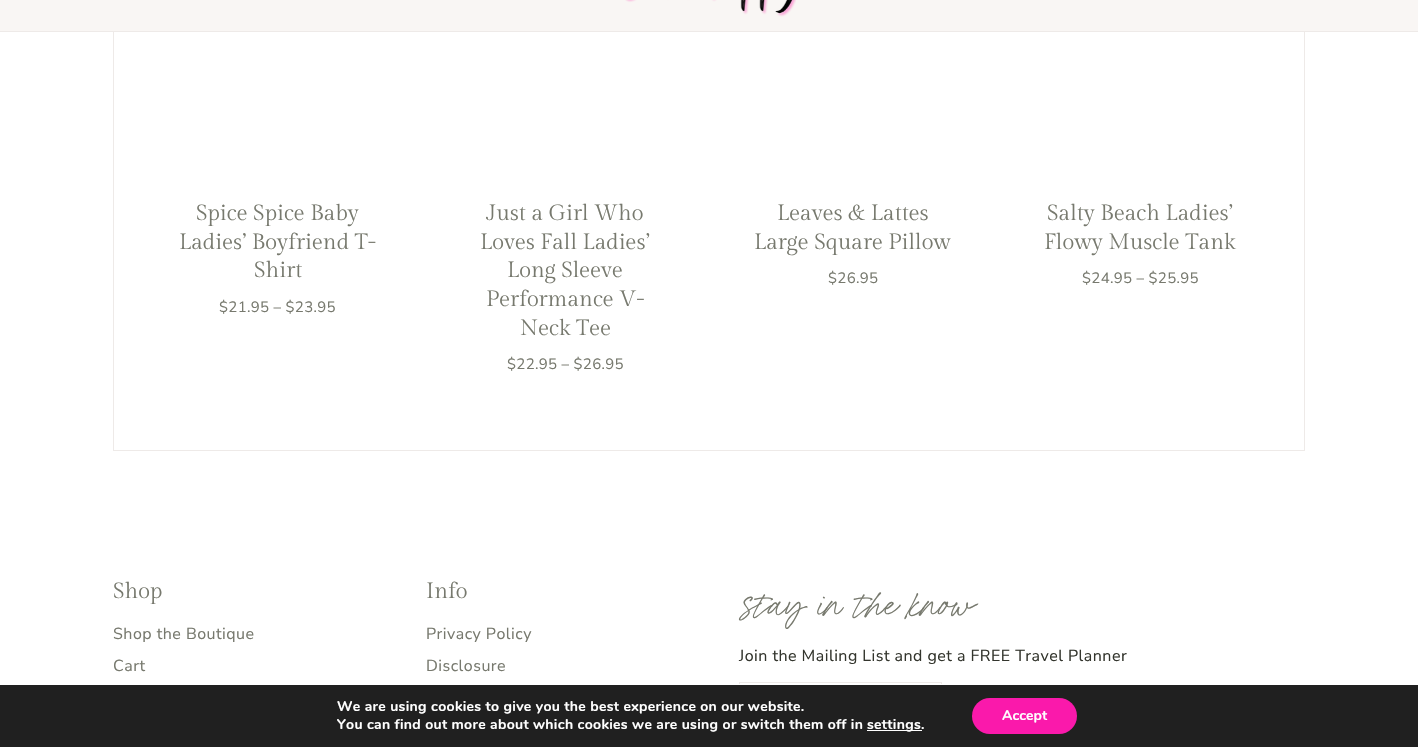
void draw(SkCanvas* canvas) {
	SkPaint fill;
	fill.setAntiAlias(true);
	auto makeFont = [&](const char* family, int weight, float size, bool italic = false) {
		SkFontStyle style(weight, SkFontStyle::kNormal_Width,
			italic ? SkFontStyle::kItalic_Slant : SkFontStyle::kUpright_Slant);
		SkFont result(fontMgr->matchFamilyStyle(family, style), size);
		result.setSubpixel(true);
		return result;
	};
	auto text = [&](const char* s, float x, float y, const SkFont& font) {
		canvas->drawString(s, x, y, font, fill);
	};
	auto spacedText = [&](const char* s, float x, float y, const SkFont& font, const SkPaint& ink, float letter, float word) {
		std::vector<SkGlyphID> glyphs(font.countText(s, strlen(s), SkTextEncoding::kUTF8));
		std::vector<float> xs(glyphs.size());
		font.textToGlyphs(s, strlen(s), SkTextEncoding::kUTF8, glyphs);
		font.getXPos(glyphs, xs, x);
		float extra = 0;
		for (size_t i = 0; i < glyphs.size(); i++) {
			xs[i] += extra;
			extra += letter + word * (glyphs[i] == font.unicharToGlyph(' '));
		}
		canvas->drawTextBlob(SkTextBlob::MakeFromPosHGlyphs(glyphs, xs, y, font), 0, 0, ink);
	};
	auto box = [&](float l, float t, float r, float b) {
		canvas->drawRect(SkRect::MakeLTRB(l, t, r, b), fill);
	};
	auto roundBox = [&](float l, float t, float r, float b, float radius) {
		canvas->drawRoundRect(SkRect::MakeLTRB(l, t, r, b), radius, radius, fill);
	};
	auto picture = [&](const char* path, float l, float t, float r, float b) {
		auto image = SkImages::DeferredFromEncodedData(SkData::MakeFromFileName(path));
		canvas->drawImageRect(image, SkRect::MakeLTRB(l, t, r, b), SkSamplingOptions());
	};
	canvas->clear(0xFFFFFFFF);
	fill.setStyle(SkPaint::kStroke_Style);
	fill.setStrokeWidth(1);
	fill.setColor(0xFFEEEAE8);
	canvas->drawRect(SkRect::MakeLTRB(113.5f, -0.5f, 1304.5f, 450.5f), fill);
	fill.setStyle(SkPaint::kFill_Style);
	fill.setColor(0xFFF9F6F4);
	box(0, 0, 1418, 31);
	fill.setColor(0xFFEEEAE8);
	box(0, 31, 1418, 32);
	picture("image0.png", 625, 0, 796, 17);
	fill.setStyle(SkPaint::kStroke_Style);
	canvas->drawRect(SkRect::MakeLTRB(739.5f, 682.5f, 941.5f, 735.5f), fill);
	fill.setStyle(SkPaint::kFill_Style);
	fill.setColor(0xFF202020);
	box(0, 685, 1418, 747);
	fill.setColor(0xFFFFFFFF);
	box(739, 684, 942, 685);
	box(867, 730, 922, 731);
	fill.setColor(0xFFFA19AB);
	roundBox(972, 698, 1077, 734, 18);
	auto font1 = makeFont("Gilda Display", 400, 22);
	fill.setColor(0xFF77796E);
	text("Spice Spice Baby", 196, 220, font1);
	text("Ladies’ Boyfriend T-", 179, 249, font1);
	text("Shirt", 254, 277, font1);
	auto font2 = makeFont("Nunito Sans", 400, 15);
	spacedText("$21.95 – $23.95", 219, 312, font2, fill, 0.32f, 0);
	text("Just a Girl Who", 486, 220, font1);
	text("Loves Fall Ladies’", 480, 249, font1);
	text("Long Sleeve", 507, 277, font1);
	text("Performance V-", 486, 306, font1);
	text("Neck Tee", 520, 335, font1);
	spacedText("$22.95 – $26.95", 507, 369, font2, fill, 0.32f, 0);
	text("Leaves & Lattes", 777, 220, font1);
	text("Large Square Pillow", 754, 249, font1);
	spacedText("$26.95", 828, 283, font2, fill, 0.32f, 0);
	text("Salty Beach Ladies’", 1047, 220, font1);
	text("Flowy Muscle Tank", 1044, 249, font1);
	spacedText("$24.95 – $25.95", 1082, 283, font2, fill, 0.32f, 0);
	text("Shop", 113, 598, font1);
	auto font3 = makeFont("Nunito Sans", 400, 16);
	spacedText("Shop the Boutique", 113, 639, font3, fill, 0.48f, 0);
	spacedText("Cart", 113, 671, font3, fill, 0.48f, 0);
	text("Info", 426, 598, font1);
	spacedText("Privacy Policy", 426, 639, font3, fill, 0.48f, 0);
	spacedText("Disclosure", 426, 671, font3, fill, 0.48f, 0);
	auto font4 = makeFont("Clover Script", 400, 42);
	text("stay in the know", 741, 618, font4);
	fill.setColor(0xFF33352D);
	spacedText("Join the Mailing List and get a FREE Travel Planner", 739, 661, font3, fill, 0.48f, 0);
	auto font5 = makeFont("Nunito", 700, 14);
	fill.setColor(0xFFFFFFFF);
	spacedText("We are using cookies to give you the best experience on our website.", 337, 711, font5, fill, 0.32f, 0);
	spacedText("You can find out more about which cookies we are using or switch them off in", 337, 729, font5, fill, 0.32f, 0);
	spacedText("settings.", 867, 729, font5, fill, 0.32f, 0);
	text("Accept", 1002, 720, font5);
}
